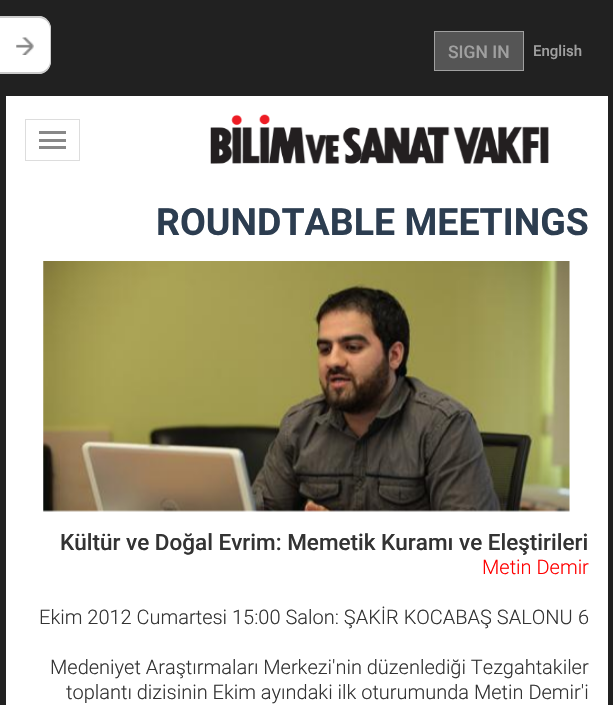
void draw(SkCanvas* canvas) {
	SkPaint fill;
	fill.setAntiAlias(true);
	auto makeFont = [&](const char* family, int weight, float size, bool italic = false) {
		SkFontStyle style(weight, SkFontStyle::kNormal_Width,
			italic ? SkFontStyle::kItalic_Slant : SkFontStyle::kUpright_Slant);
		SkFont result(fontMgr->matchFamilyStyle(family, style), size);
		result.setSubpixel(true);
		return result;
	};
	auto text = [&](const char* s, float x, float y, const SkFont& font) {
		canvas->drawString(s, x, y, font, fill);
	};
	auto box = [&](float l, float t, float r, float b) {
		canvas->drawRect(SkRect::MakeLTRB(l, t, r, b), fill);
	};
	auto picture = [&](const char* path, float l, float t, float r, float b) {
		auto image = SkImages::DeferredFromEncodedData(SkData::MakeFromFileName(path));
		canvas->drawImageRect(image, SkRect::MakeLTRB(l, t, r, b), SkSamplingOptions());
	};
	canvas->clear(0xFF212121);
	fill.setColor(0xFF555555);
	canvas->drawRect(SkRect::MakeLTRB(434.5f, 31.5f, 523.5f, 70.5f), fill);
	fill.setStyle(SkPaint::kStroke_Style);
	fill.setStrokeWidth(1);
	fill.setColor(0xFFA0A0A0);
	canvas->drawRect(SkRect::MakeLTRB(434.5f, 31.5f, 523.5f, 70.5f), fill);
	fill.setStyle(SkPaint::kFill_Style);
	fill.setColor(0xFFFFFFFF);
	box(6, 96, 608, 705);
	canvas->drawPath(SkPathBuilder().moveTo(0, 16).lineTo(38, 16).cubicTo(45, 16, 51, 22, 51, 29).lineTo(51, 61).cubicTo(51, 68, 45, 74, 38, 74).lineTo(0, 74).close().detach(), fill);
	fill.setColor(0xFFCCCCCC);
	canvas->drawPath(SkPathBuilder(SkPathFillType::kEvenOdd).moveTo(0, 16).lineTo(39, 16).cubicTo(46, 16, 51, 22, 51, 29).lineTo(51, 61).cubicTo(51, 68, 46, 74, 39, 74).lineTo(0, 74).close().moveTo(0, 18).lineTo(39, 18).cubicTo(45, 18, 50, 23, 50, 29).lineTo(50, 61).cubicTo(50, 67, 45, 72, 39, 72).lineTo(0, 72).close().detach(), fill);
	picture("image0.png", 16, 37, 34, 55);
	fill.setStyle(SkPaint::kStroke_Style);
	fill.setColor(0xFFDDDDDD);
	canvas->drawRect(SkRect::MakeLTRB(25.5f, 119.5f, 79.5f, 160.5f), fill);
	fill.setStyle(SkPaint::kFill_Style);
	fill.setColor(0xFF888888);
	box(39, 131, 66, 134);
	box(39, 139, 66, 142);
	box(39, 146, 66, 149);
	picture("image1.png", 210, 114, 549, 164);
	picture("image2.png", 43, 261, 570, 512);
	auto font1 = makeFont("Roboto", 500, 17.5f);
	fill.setColor(0xFFA0A0A0);
	text("SIGN IN", 448, 58, font1);
	auto font2 = makeFont("Roboto", 500, 15);
	text("English", 533, 56, font2);
	auto font3 = makeFont("Roboto", 700, 37.5f);
	fill.setColor(0xFF2C3D50);
	text("ROUNDTABLE MEETINGS", 156, 235, font3);
	auto font4 = makeFont("Roboto", 500, 22.5f);
	fill.setColor(0xFF333333);
	text("Kültür ve Doğal Evrim: Memetik Kuramı ve Eleştirileri", 60, 550, font4);
	auto font5 = makeFont("Roboto", 300, 20);
	fill.setColor(0xFFFF0000);
	text("Metin Demir", 482, 574, font5);
	fill.setColor(0xFF333333);
	text("Ekim 2012 Cumartesi 15:00 Salon: ŞAKİR KOCABAŞ SALONU", 39, 624, font5);
	text("6", 578, 624, font5);
	text("Medeniyet Araştırmaları Merkezi'nin düzenlediği Tezgahtakiler", 50, 674, font5);
	text("toplantı dizisinin Ekim ayındaki ilk oturumunda Metin Demir'i", 66, 699, font5);
}
